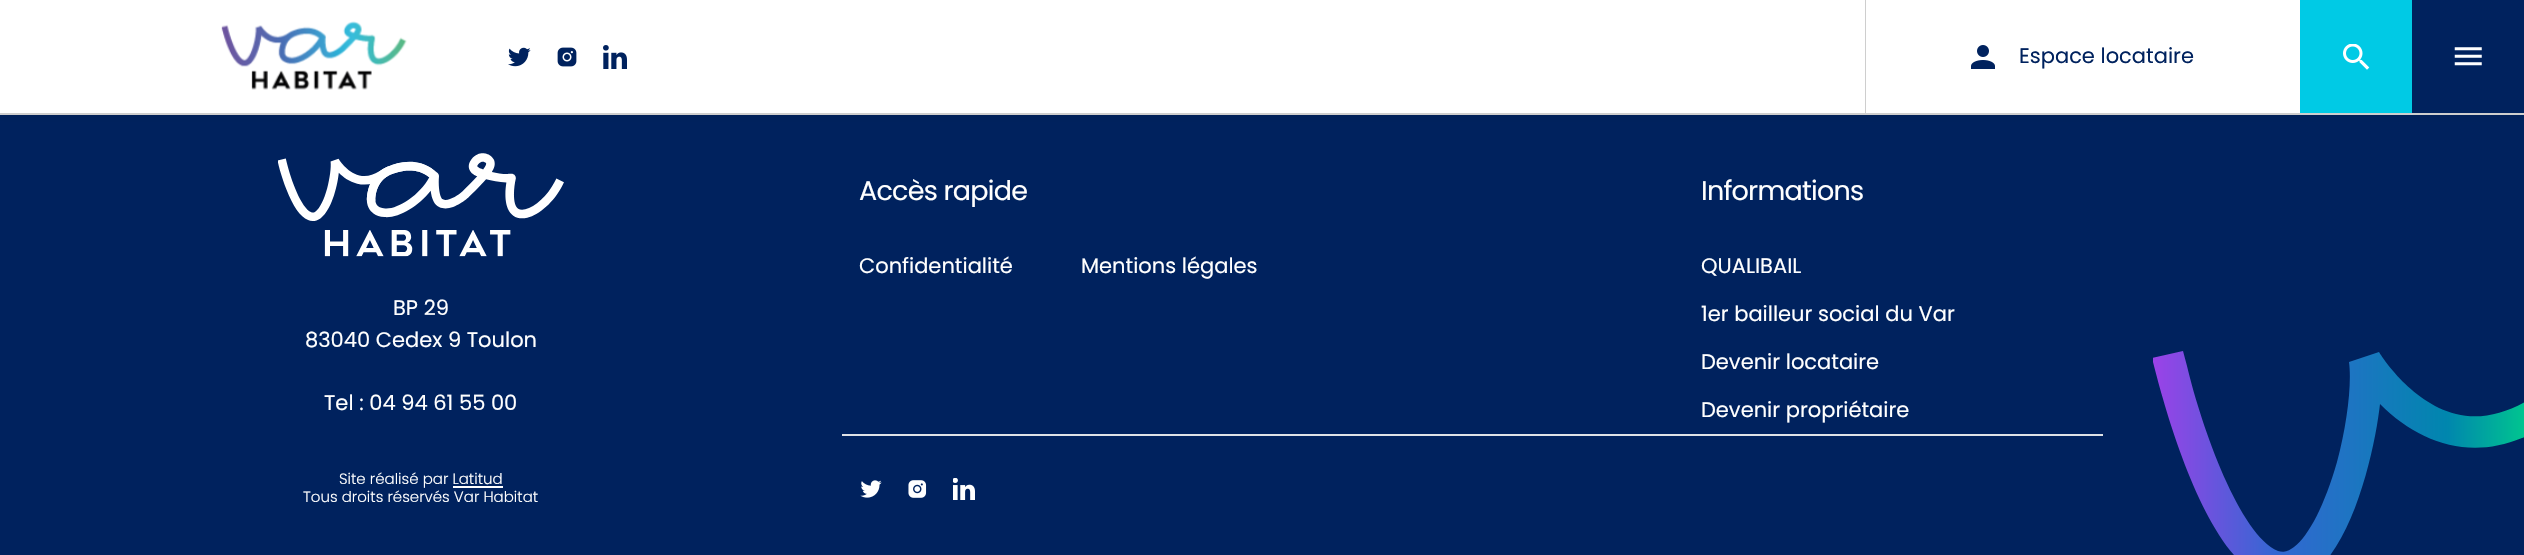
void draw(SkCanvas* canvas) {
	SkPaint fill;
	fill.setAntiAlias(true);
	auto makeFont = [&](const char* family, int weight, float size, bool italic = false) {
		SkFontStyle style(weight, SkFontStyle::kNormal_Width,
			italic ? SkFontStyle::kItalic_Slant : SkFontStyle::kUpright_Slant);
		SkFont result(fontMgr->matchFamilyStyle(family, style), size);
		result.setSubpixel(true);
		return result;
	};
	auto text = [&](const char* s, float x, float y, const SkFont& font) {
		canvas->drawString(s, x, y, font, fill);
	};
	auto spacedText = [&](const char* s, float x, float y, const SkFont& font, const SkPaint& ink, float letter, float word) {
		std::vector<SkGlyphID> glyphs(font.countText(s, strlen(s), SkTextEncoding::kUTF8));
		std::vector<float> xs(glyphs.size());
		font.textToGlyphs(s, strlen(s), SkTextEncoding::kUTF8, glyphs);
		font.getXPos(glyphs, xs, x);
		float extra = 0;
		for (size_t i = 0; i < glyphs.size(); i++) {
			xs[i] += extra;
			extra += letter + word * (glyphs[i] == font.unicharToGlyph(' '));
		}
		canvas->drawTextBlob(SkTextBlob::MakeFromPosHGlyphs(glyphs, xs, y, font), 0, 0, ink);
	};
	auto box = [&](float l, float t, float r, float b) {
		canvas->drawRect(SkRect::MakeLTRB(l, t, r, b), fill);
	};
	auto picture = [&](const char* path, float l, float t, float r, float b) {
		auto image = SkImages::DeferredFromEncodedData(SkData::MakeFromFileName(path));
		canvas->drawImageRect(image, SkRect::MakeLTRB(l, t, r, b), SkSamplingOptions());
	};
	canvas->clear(0xFF00225E);
	fill.setColor(0x29000000);
	fill.setMaskFilter(SkMaskFilter::MakeBlur(kNormal_SkBlurStyle, 4));
	canvas->drawRect(SkRect::MakeLTRB(0, 0, 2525, 114), fill);
	fill.setMaskFilter(nullptr);
	fill.setColor(0xFFFFFFFF);
	box(0, 0, 1865, 113);
	fill.setColor(0xFFCECECE);
	box(0, 113, 2524, 115);
	picture("image0.png", 221, 21, 407, 90);
	picture("image1.png", 508, 47, 531, 67);
	picture("image2.png", 557, 47, 577, 67);
	picture("image3.png", 603, 45, 627, 69);
	box(1865, 0, 1866, 113);
	fill.setColor(0xFFFFFFFF);
	box(1866, 0, 2300, 113);
	picture("image4.png", 1971, 45, 1995, 69);
	fill.setColor(0xFF00CAE5);
	box(2300, 0, 2412, 113);
	picture("image5.png", 2343, 44, 2370, 70);
	fill.setColor(0xFF00225E);
	box(2412, 0, 2524, 113);
	picture("image6.png", 2454, 47, 2482, 66);
	canvas->save();
	canvas->clipRect(SkRect::MakeLTRB(2153, 351, 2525, 555));
	{
		const SkColor colors[] = {0xFF9B42E8, 0xFF3467D2, 0xFF0086AE, 0xFF00E281};
		const float stops[] = {0, 0.3f, 0.72f, 1};
		const SkPoint ends[] = {{2153, 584}, {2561, 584}};
		fill.setShader(SkGradientShader::MakeLinear(ends, colors, stops, 4, SkTileMode::kClamp));
		fill.setAlpha(255);
	}
	canvas->drawPath(SkPathBuilder().moveTo(2283, 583).cubicTo(2213, 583, 2167, 418, 2152, 358).lineTo(2183, 351).lineTo(2187, 366).cubicTo(2202, 429, 2240, 535, 2278, 551).cubicTo(2282, 552, 2286, 553, 2294, 547).cubicTo(2309, 536, 2325, 504, 2337, 462).cubicTo(2347, 425, 2352, 384, 2349, 362).lineTo(2379, 352).cubicTo(2379, 352, 2409, 402, 2456, 414).cubicTo(2480, 420, 2505, 414, 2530, 399).lineTo(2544, 390).lineTo(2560, 417).cubicTo(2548, 425, 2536, 433, 2522, 438).cubicTo(2469, 460, 2419, 443, 2380, 404).cubicTo(2375, 450, 2347, 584, 2283, 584).detach(), fill);
	canvas->restore();
	picture("image7.png", 278, 153, 564, 257);
	fill.setShader(nullptr);
	fill.setColor(0xFFFFFFFF);
	box(453, 486, 503, 488);
	fill.setColor(0xFFDEE2E6);
	box(842, 434, 2103, 436);
	picture("image8.png", 860, 480, 882, 498);
	picture("image9.png", 908, 480, 927, 498);
	picture("image10.png", 953, 478, 975, 500);
	auto font1 = makeFont("Poppins", 400, 21);
	fill.setColor(0xFF00225E);
	text("Espace locataire", 2019, 63, font1);
	fill.setColor(0xFFFFFFFF);
	text("BP 29", 393, 315, font1);
	text("83040 Cedex 9 Toulon", 305, 347, font1);
	text("Tel : 04 94 61 55 00", 324, 410, font1);
	auto font2 = makeFont("Poppins", 400, 27);
	spacedText("Accès rapide", 859, 200, font2, fill, -0.75f, 0);
	text("Confidentialité", 859, 273, font1);
	text("Mentions légales", 1081, 273, font1);
	spacedText("Informations", 1701, 200, font2, fill, -0.75f, 0);
	text("QUALIBAIL", 1701, 273, font1);
	text("1er bailleur social du Var", 1701, 321, font1);
	text("Devenir locataire", 1701, 369, font1);
	text("Devenir propriétaire", 1701, 417, font1);
	auto font3 = makeFont("Poppins", 300, 15);
	text("Site réalisé par Latitud", 339, 484, font3);
	text("Tous droits réservés Var Habitat", 303, 502, font3);
}
